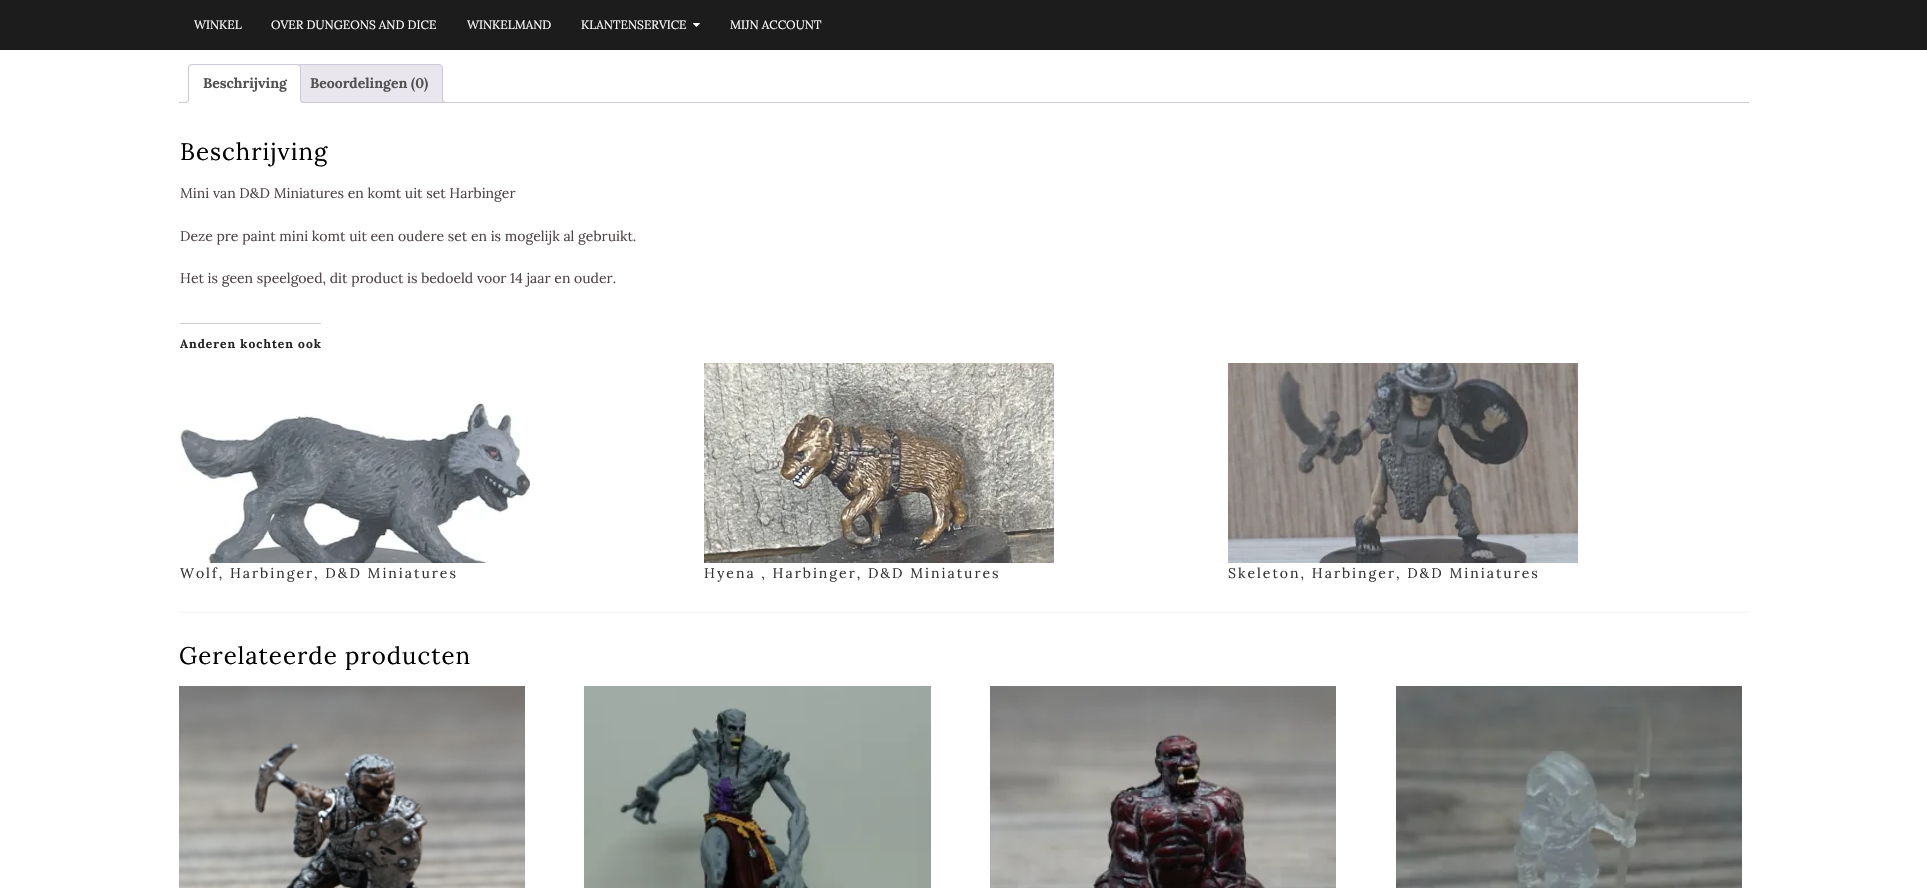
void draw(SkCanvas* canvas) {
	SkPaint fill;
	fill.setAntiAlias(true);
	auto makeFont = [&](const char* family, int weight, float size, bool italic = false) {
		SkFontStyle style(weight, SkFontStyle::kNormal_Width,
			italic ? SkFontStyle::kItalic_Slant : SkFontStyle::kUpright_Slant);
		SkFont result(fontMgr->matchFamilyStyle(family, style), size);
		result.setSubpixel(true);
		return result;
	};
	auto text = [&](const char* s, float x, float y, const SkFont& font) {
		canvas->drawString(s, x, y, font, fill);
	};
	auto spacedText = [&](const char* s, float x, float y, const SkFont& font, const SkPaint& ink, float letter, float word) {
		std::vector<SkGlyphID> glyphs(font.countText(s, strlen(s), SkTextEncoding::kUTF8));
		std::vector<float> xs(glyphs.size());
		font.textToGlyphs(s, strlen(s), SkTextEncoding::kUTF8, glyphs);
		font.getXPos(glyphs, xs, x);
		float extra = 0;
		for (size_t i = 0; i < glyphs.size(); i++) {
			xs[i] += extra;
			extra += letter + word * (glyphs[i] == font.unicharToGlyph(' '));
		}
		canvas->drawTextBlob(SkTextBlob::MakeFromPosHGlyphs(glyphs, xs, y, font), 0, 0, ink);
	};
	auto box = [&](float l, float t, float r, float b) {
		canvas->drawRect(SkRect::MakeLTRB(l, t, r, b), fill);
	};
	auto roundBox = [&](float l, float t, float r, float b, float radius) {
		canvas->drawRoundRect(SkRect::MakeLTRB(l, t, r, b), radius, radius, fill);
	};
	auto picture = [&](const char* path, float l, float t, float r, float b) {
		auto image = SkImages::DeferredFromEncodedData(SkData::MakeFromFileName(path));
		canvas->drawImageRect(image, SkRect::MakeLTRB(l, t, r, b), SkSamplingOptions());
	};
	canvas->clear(0xFFFFFFFF);
	fill.setColor(0xFF1C1C1C);
	box(0, 0, 1927, 50);
	picture("image0.png", 693, 23, 700, 27);
	fill.setColor(0xFFE9E6ED);
	canvas->drawPath(SkPathBuilder().moveTo(299, 64.5f).lineTo(439, 64.5f).cubicTo(441, 64.5f, 442.5f, 66, 442.5f, 68).lineTo(442.5f, 102.5f).lineTo(295.5f, 102.5f).lineTo(295.5f, 68).cubicTo(295.5f, 66, 297, 64.5f, 299, 64.5f).close().detach(), fill);
	fill.setStyle(SkPaint::kStroke_Style);
	fill.setStrokeWidth(1);
	fill.setColor(0xFFCFC8D8);
	canvas->drawPath(SkPathBuilder().moveTo(299, 64.5f).lineTo(439, 64.5f).cubicTo(441, 64.5f, 442.5f, 66, 442.5f, 68).lineTo(442.5f, 102.5f).lineTo(295.5f, 102.5f).lineTo(295.5f, 68).cubicTo(295.5f, 66, 297, 64.5f, 299, 64.5f).close().detach(), fill);
	canvas->save();
	canvas->clipRect(SkRect::MakeLTRB(179, 64, 1749, 103));
	fill.setStyle(SkPaint::kFill_Style);
	fill.setColor(0xFFE9E6ED);
	canvas->drawPath(SkPathBuilder().moveTo(440, 100).cubicTo(440, 103.5f, 441.5f, 105, 445, 105).lineTo(445, 103).cubicTo(443.5f, 102.5f, 442.5f, 101.5f, 442, 100).close().detach(), fill);
	canvas->restore();
	fill.setColor(0xFFCFC8D8);
	canvas->drawPath(SkPathBuilder(SkPathFillType::kEvenOdd).moveTo(442, 98).lineTo(447, 98).lineTo(447, 103).cubicTo(444.5f, 103, 442, 102, 442, 99).close().moveTo(443, 98).lineTo(447, 98).lineTo(447, 102).cubicTo(445, 102, 443, 101.5f, 443, 99).close().detach(), fill);
	box(179, 102, 1749, 103);
	fill.setColor(0xFFFFFFFF);
	canvas->drawPath(SkPathBuilder().moveTo(192, 64).lineTo(297, 64).cubicTo(299, 64, 301, 66, 301, 68).lineTo(301, 103).lineTo(188, 103).lineTo(188, 68).cubicTo(188, 66, 190, 64, 192, 64).close().detach(), fill);
	fill.setColor(0xFFCFC8D8);
	canvas->drawPath(SkPathBuilder().moveTo(192, 64).lineTo(189, 65).lineTo(190, 66).lineTo(192, 65).lineTo(297, 65).lineTo(299, 66).lineTo(300, 65).lineTo(297, 64).close().detach(), fill);
	canvas->drawPath(SkPathBuilder().moveTo(301, 103).lineTo(301, 68).cubicTo(301, 67, 300.5f, 66, 300, 65).lineTo(299, 66).cubicTo(300, 66, 300, 67, 300, 68).lineTo(300, 102).close().detach(), fill);
	fill.setColor(0xFFFFFFFF);
	canvas->drawPath(SkPathBuilder().moveTo(301, 103).lineTo(300, 102).lineTo(189, 102).lineTo(188, 103).close().detach(), fill);
	fill.setColor(0xFFCFC8D8);
	canvas->drawPath(SkPathBuilder().moveTo(188, 103).lineTo(189, 102).lineTo(189, 68).cubicTo(189, 67, 189, 66, 190, 66).lineTo(189, 65).cubicTo(188.5f, 66, 188, 67, 188, 68).close().detach(), fill);
	canvas->save();
	canvas->clipRect(SkRect::MakeLTRB(179, 64, 1749, 103));
	fill.setColor(0xFFFFFFFF);
	canvas->drawPath(SkPathBuilder().moveTo(186, 103).lineTo(186, 105).cubicTo(189.5f, 105, 191, 103.5f, 191, 100).lineTo(189, 100).cubicTo(188.5f, 101.5f, 187.5f, 102.5f, 186, 103).close().detach(), fill);
	canvas->restore();
	fill.setColor(0xFFCFC8D8);
	canvas->drawPath(SkPathBuilder(SkPathFillType::kEvenOdd).moveTo(184, 98).lineTo(189, 98).cubicTo(189, 101.5f, 187.5f, 103, 184, 103).close().moveTo(184, 98).lineTo(188, 98).cubicTo(188, 101, 187, 102, 184, 102).close().detach(), fill);
	canvas->save();
	canvas->clipRect(SkRect::MakeLTRB(179, 64, 1749, 103));
	fill.setColor(0xFFFFFFFF);
	canvas->drawPath(SkPathBuilder().moveTo(298, 100).cubicTo(298, 103.5f, 299.5f, 105, 303, 105).lineTo(303, 103).cubicTo(301.5f, 102.5f, 300.5f, 101.5f, 300, 100).close().detach(), fill);
	canvas->restore();
	fill.setColor(0xFFCFC8D8);
	canvas->drawPath(SkPathBuilder(SkPathFillType::kEvenOdd).moveTo(300, 98).lineTo(305, 98).lineTo(305, 103).cubicTo(302.5f, 103, 300, 102, 300, 99).close().moveTo(301, 98).lineTo(305, 98).lineTo(305, 102).cubicTo(303, 102, 301, 101.5f, 301, 99).close().detach(), fill);
	fill.setColor(0x0D000000);
	fill.setMaskFilter(SkMaskFilter::MakeBlur(kNormal_SkBlurStyle, 0.5f));
	canvas->drawRoundRect(SkRect::MakeLTRB(179, 126, 1749, 613), 4, 4, fill);
	fill.setMaskFilter(nullptr);
	fill.setColor(0xFFFFFFFF);
	roundBox(179, 125, 1749, 612, 4);
	fill.setColor(0xFFCCCCCC);
	box(180, 323, 321, 324);
	picture("image1.png", 180, 403, 530, 563);
	picture("image2.png", 704, 363, 1054, 563);
	picture("image3.png", 1228, 363, 1578, 563);
	picture("image4.png", 179, 686, 525, 888);
	picture("image5.png", 584, 686, 931, 888);
	picture("image6.png", 990, 686, 1336, 888);
	picture("image7.png", 1396, 686, 1742, 888);
	auto font1 = makeFont("Lora", 400, 12);
	fill.setColor(0xFFFFFFFF);
	text("WINKEL", 194, 29, font1);
	text("OVER DUNGEONS AND DICE", 271, 29, font1);
	text("WINKELMAND", 467, 29, font1);
	text("KLANTENSERVICE", 581, 29, font1);
	text("MIJN ACCOUNT", 730, 29, font1);
	auto font2 = makeFont("Lora", 700, 14);
	fill.setColor(0xFF515151);
	text("Beschrijving", 203, 88, font2);
	text("Beoordelingen (0)", 310, 88, font2);
	auto font3 = makeFont("Lora", 400, 24);
	fill.setColor(0xFF000000);
	spacedText("Beschrijving", 180, 160, font3, fill, 1, 0);
	auto font4 = makeFont("Lora", 400, 14);
	fill.setColor(0xFF4E4344);
	text("Mini van D&D Miniatures en komt uit set Harbinger", 180, 198, font4);
	text("Deze pre paint mini komt uit een oudere set en is mogelijk al gebruikt.", 180, 241, font4);
	text("Het is geen speelgoed, dit product is bedoeld voor 14 jaar en ouder.", 180, 283, font4);
	auto font5 = makeFont("Lora", 700, 12);
	fill.setColor(0xFF222222);
	spacedText("Anderen kochten ook", 180, 348, font5, fill, 1, 0);
	fill.setColor(0xFF333333);
	spacedText("Wolf, Harbinger, D&D Miniatures", 180, 578, font4, fill, 2, 0);
	spacedText("Hyena , Harbinger, D&D Miniatures", 704, 578, font4, fill, 2, 0);
	spacedText("Skeleton, Harbinger, D&D Miniatures", 1228, 578, font4, fill, 2, 0);
	fill.setColor(0xFF000000);
	spacedText("Gerelateerde producten", 179, 664, font3, fill, 1, 0);
}
